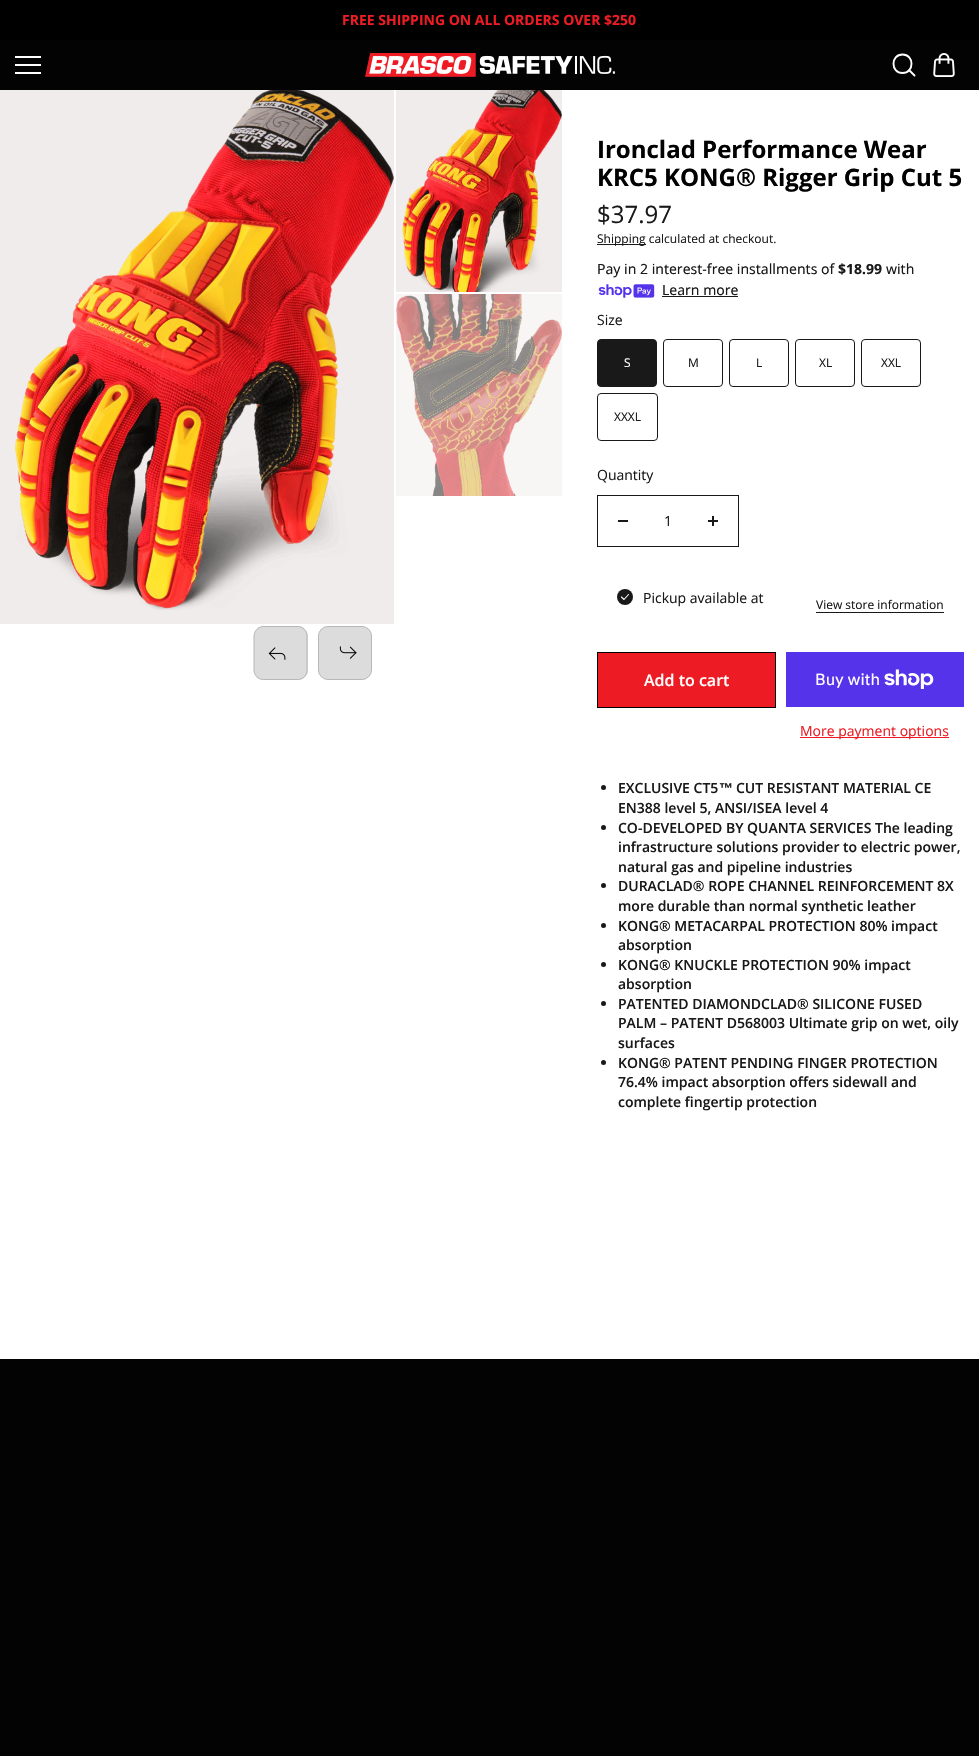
void draw(SkCanvas* canvas) {
	SkPaint fill;
	fill.setAntiAlias(true);
	auto makeFont = [&](const char* family, int weight, float size, bool italic = false) {
		SkFontStyle style(weight, SkFontStyle::kNormal_Width,
			italic ? SkFontStyle::kItalic_Slant : SkFontStyle::kUpright_Slant);
		SkFont result(fontMgr->matchFamilyStyle(family, style), size);
		result.setSubpixel(true);
		return result;
	};
	auto text = [&](const char* s, float x, float y, const SkFont& font) {
		canvas->drawString(s, x, y, font, fill);
	};
	auto box = [&](float l, float t, float r, float b) {
		canvas->drawRect(SkRect::MakeLTRB(l, t, r, b), fill);
	};
	auto picture = [&](const char* path, float l, float t, float r, float b) {
		auto image = SkImages::DeferredFromEncodedData(SkData::MakeFromFileName(path));
		canvas->drawImageRect(image, SkRect::MakeLTRB(l, t, r, b), SkSamplingOptions());
	};
	canvas->clear(0xFFFFFFFF);
	fill.setColor(0xFF000000);
	box(0, 0, 979, 40);
	fill.setColor(0xFF030303);
	box(0, 40, 979, 90);
	fill.setColor(0xFFFFFFFF);
	box(15, 56, 41, 58);
	box(15, 64, 41, 66);
	box(15, 72, 41, 74);
	picture("image0.png", 365, 53, 615, 77);
	fill.setStyle(SkPaint::kStroke_Style);
	fill.setStrokeWidth(1.9f);
	fill.setStrokeCap(SkPaint::kRound_Cap);
	fill.setStrokeJoin(SkPaint::kRound_Join);
	canvas->drawPath(SkPathBuilder().moveTo(902.5f, 73).cubicTo(914.5f, 73, 914.5f, 54.5f, 902.5f, 54.5f).cubicTo(890.5f, 54.5f, 890.5f, 73, 902.5f, 73).close().moveTo(909, 70).lineTo(914.5f, 75.5f).detach(), fill);
	picture("image1.png", 933, 53, 955, 77);
	fill.setStyle(SkPaint::kFill_Style);
	fill.setColor(0xFFF0ECEB);
	box(0, 90, 394, 624);
	picture("image2.png", 15, 90, 394, 610);
	fill.setColor(0xFFDCDCDC);
	canvas->drawPath(SkPathBuilder().moveTo(298, 680).lineTo(264, 680).cubicTo(258, 680, 254, 676, 254, 670).lineTo(254, 636).cubicTo(254, 631, 258, 626, 264, 626).lineTo(298, 626).cubicTo(303, 626, 308, 631, 308, 636).lineTo(308, 670).cubicTo(308, 676, 303, 680, 298, 680).close().detach(), fill);
	fill.setStyle(SkPaint::kStroke_Style);
	fill.setStrokeWidth(1);
	fill.setStrokeCap(SkPaint::kButt_Cap);
	fill.setStrokeJoin(SkPaint::kMiter_Join);
	fill.setColor(0xFFB7B7B7);
	canvas->drawPath(SkPathBuilder().moveTo(297.5f, 679.5f).lineTo(263.5f, 679.5f).cubicTo(258.5f, 679.5f, 254, 675.5f, 254, 670).lineTo(254, 636).cubicTo(254, 631, 258.5f, 626.5f, 263.5f, 626.5f).lineTo(297.5f, 626.5f).cubicTo(303, 626.5f, 307, 631, 307, 636).lineTo(307, 670).cubicTo(307, 675.5f, 303, 679.5f, 297.5f, 679.5f).close().detach(), fill);
	picture("image3.png", 268, 647, 286, 660);
	fill.setStyle(SkPaint::kFill_Style);
	fill.setColor(0xFFDCDCDC);
	canvas->drawRoundRect(SkRect::MakeLTRB(318.5f, 626.5f, 371.5f, 679.5f), 9.5f, 9.5f, fill);
	fill.setStyle(SkPaint::kStroke_Style);
	fill.setColor(0xFFB7B7B7);
	canvas->drawRoundRect(SkRect::MakeLTRB(318.5f, 626.5f, 371.5f, 679.5f), 9.5f, 9.5f, fill);
	picture("image4.png", 339, 646, 357, 659);
	fill.setStyle(SkPaint::kFill_Style);
	fill.setColor(0xFFF0ECEB);
	box(396, 90, 562, 292);
	picture("image5.png", 402, 90, 562, 292);
	fill.setColor(0xFFF8F6F5);
	box(396, 294, 562, 496);
	picture("image6.png", 396, 294, 562, 496);
	fill.setColor(0xFF191919);
	box(597, 244, 646, 245);
	picture("image7.png", 598, 284, 655, 298);
	box(662, 296, 738, 297);
	canvas->drawRoundRect(SkRect::MakeLTRB(597.5f, 339.5f, 656.5f, 386.5f), 3.5f, 3.5f, fill);
	fill.setStyle(SkPaint::kStroke_Style);
	canvas->drawRoundRect(SkRect::MakeLTRB(597.5f, 339.5f, 656.5f, 386.5f), 3.5f, 3.5f, fill);
	canvas->drawRoundRect(SkRect::MakeLTRB(663.5f, 339.5f, 722.5f, 386.5f), 3.5f, 3.5f, fill);
	canvas->drawRoundRect(SkRect::MakeLTRB(729.5f, 339.5f, 788.5f, 386.5f), 3.5f, 3.5f, fill);
	canvas->drawRoundRect(SkRect::MakeLTRB(795.5f, 339.5f, 854.5f, 386.5f), 3.5f, 3.5f, fill);
	canvas->drawRoundRect(SkRect::MakeLTRB(861.5f, 339.5f, 920.5f, 386.5f), 3.5f, 3.5f, fill);
	canvas->drawRoundRect(SkRect::MakeLTRB(597.5f, 393.5f, 657.5f, 440.5f), 3.5f, 3.5f, fill);
	canvas->drawRect(SkRect::MakeLTRB(597.5f, 495.5f, 738.5f, 546.5f), fill);
	fill.setStyle(SkPaint::kFill_Style);
	box(618, 520, 628, 522);
	box(708, 520, 718, 522);
	box(712, 516, 714, 526);
	canvas->drawCircle(625, 597, 8, fill);
	fill.setStyle(SkPaint::kStroke_Style);
	fill.setStrokeWidth(1.1f);
	fill.setStrokeCap(SkPaint::kRound_Cap);
	fill.setStrokeJoin(SkPaint::kRound_Join);
	fill.setColor(0xFFFFFFFF);
	canvas->drawPath(SkPathBuilder().moveTo(628.5f, 594.5f).lineTo(624, 599.5f).lineTo(621.5f, 597).detach(), fill);
	fill.setStyle(SkPaint::kFill_Style);
	fill.setColor(0xFF191919);
	box(816, 612, 944, 613);
	fill.setColor(0xFFED1C24);
	canvas->drawRect(SkRect::MakeLTRB(597.5f, 652.5f, 775.5f, 707.5f), fill);
	fill.setStyle(SkPaint::kStroke_Style);
	fill.setStrokeWidth(1);
	fill.setStrokeCap(SkPaint::kButt_Cap);
	fill.setStrokeJoin(SkPaint::kMiter_Join);
	fill.setColor(0xFF000000);
	canvas->drawRect(SkRect::MakeLTRB(597.5f, 652.5f, 775.5f, 707.5f), fill);
	fill.setStyle(SkPaint::kFill_Style);
	fill.setColor(0xFF5433EB);
	box(786, 652, 964, 707);
	picture("image8.png", 884, 669, 934, 689);
	fill.setColor(0xFFED1C24);
	box(800, 737, 949, 738);
	fill.setColor(0xFF191919);
	canvas->drawCircle(603.5f, 787.5f, 2.5f, fill);
	canvas->drawCircle(603.5f, 827.5f, 2.5f, fill);
	canvas->drawCircle(603.5f, 885.5f, 2.5f, fill);
	canvas->drawCircle(603.5f, 925.5f, 2.5f, fill);
	canvas->drawCircle(603.5f, 964.5f, 2.5f, fill);
	canvas->drawCircle(603.5f, 1003.5f, 2.5f, fill);
	canvas->drawCircle(603.5f, 1062.5f, 2.5f, fill);
	fill.setColor(0xFF030303);
	box(0, 1359, 979, 1756);
	auto font1 = makeFont("Open Sans", 700, 14);
	fill.setColor(0xFFED1C24);
	text("FREE SHIPPING ON ALL ORDERS OVER $250", 342, 25, font1);
	auto font2 = makeFont("Open Sans", 700, 24);
	fill.setColor(0xFF000000);
	text("Ironclad Performance Wear", 597, 158, font2);
	text("KRC5 KONG® Rigger Grip Cut 5", 597, 186, font2);
	auto font3 = makeFont("Open Sans", 400, 24);
	fill.setColor(0xFF191919);
	text("$37.97", 597, 223, font3);
	auto font4 = makeFont("Open Sans", 400, 12);
	text("Shipping calculated at checkout.", 597, 243, font4);
	auto font5 = makeFont("Noto Sans", 400, 14);
	text("Pay in 2 interest-free installments of", 597, 274, font5);
	auto font6 = makeFont("Noto Sans", 700, 14);
	text("$18.99", 838, 274, font6);
	text("with", 886, 274, font5);
	text("Learn more", 662, 295, font5);
	auto font7 = makeFont("Open Sans", 400, 14);
	text("Size", 597, 325, font7);
	fill.setColor(0xFFFFFFFF);
	text("S", 624, 367, font4);
	fill.setColor(0xFF191919);
	text("M", 688, 367, font4);
	text("L", 756, 367, font4);
	text("XL", 819, 367, font4);
	text("XXL", 881, 367, font4);
	text("XXXL", 614, 421, font4);
	text("Quantity", 597, 480, font7);
	text("1", 664, 526, font7);
	text("Pickup available at", 643, 603, font7);
	text("View store information", 816, 609, font4);
	auto font8 = makeFont("Open Sans", 600, 16);
	fill.setColor(0xFFFFFFFF);
	text("Add to cart", 644, 686, font8);
	auto font9 = makeFont("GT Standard", 400, 16);
	text("Buy with", 815, 685, font9);
	fill.setColor(0xFFED1C24);
	text("More payment options", 800, 736, font7);
	auto font10 = makeFont("Open Sans", 600, 14);
	fill.setColor(0xFF191919);
	text("EXCLUSIVE CT5", 618, 793, font10);
	auto font11 = makeFont("Liberation Sans", 700, 14);
	text("™", 719, 793, font11);
	text("CUT RESISTANT MATERIAL CE", 736, 793, font10);
	text("EN388 level 5, ANSI/ISEA level 4", 618, 813, font10);
	text("CO-DEVELOPED BY QUANTA SERVICES The leading", 618, 833, font10);
	text("infrastructure solutions provider to electric power,", 618, 852, font10);
	text("natural gas and pipeline industries", 618, 872, font10);
	text("DURACLAD® ROPE CHANNEL REINFORCEMENT 8X", 618, 891, font10);
	text("more durable than normal synthetic leather", 618, 911, font10);
	text("KONG® METACARPAL PROTECTION 80% impact", 618, 931, font10);
	text("absorption", 618, 950, font10);
	text("KONG® KNUCKLE PROTECTION 90% impact", 618, 970, font10);
	text("absorption", 618, 989, font10);
	text("PATENTED DIAMONDCLAD® SILICONE FUSED", 618, 1009, font10);
	text("PALM – PATENT D568003 Ultimate grip on wet, oily", 618, 1028, font10);
	text("surfaces", 618, 1048, font10);
	text("KONG® PATENT PENDING FINGER PROTECTION", 618, 1068, font10);
	text("76.4% impact absorption offers sidewall and", 618, 1087, font10);
	text("complete fingertip protection", 618, 1107, font10);
}
